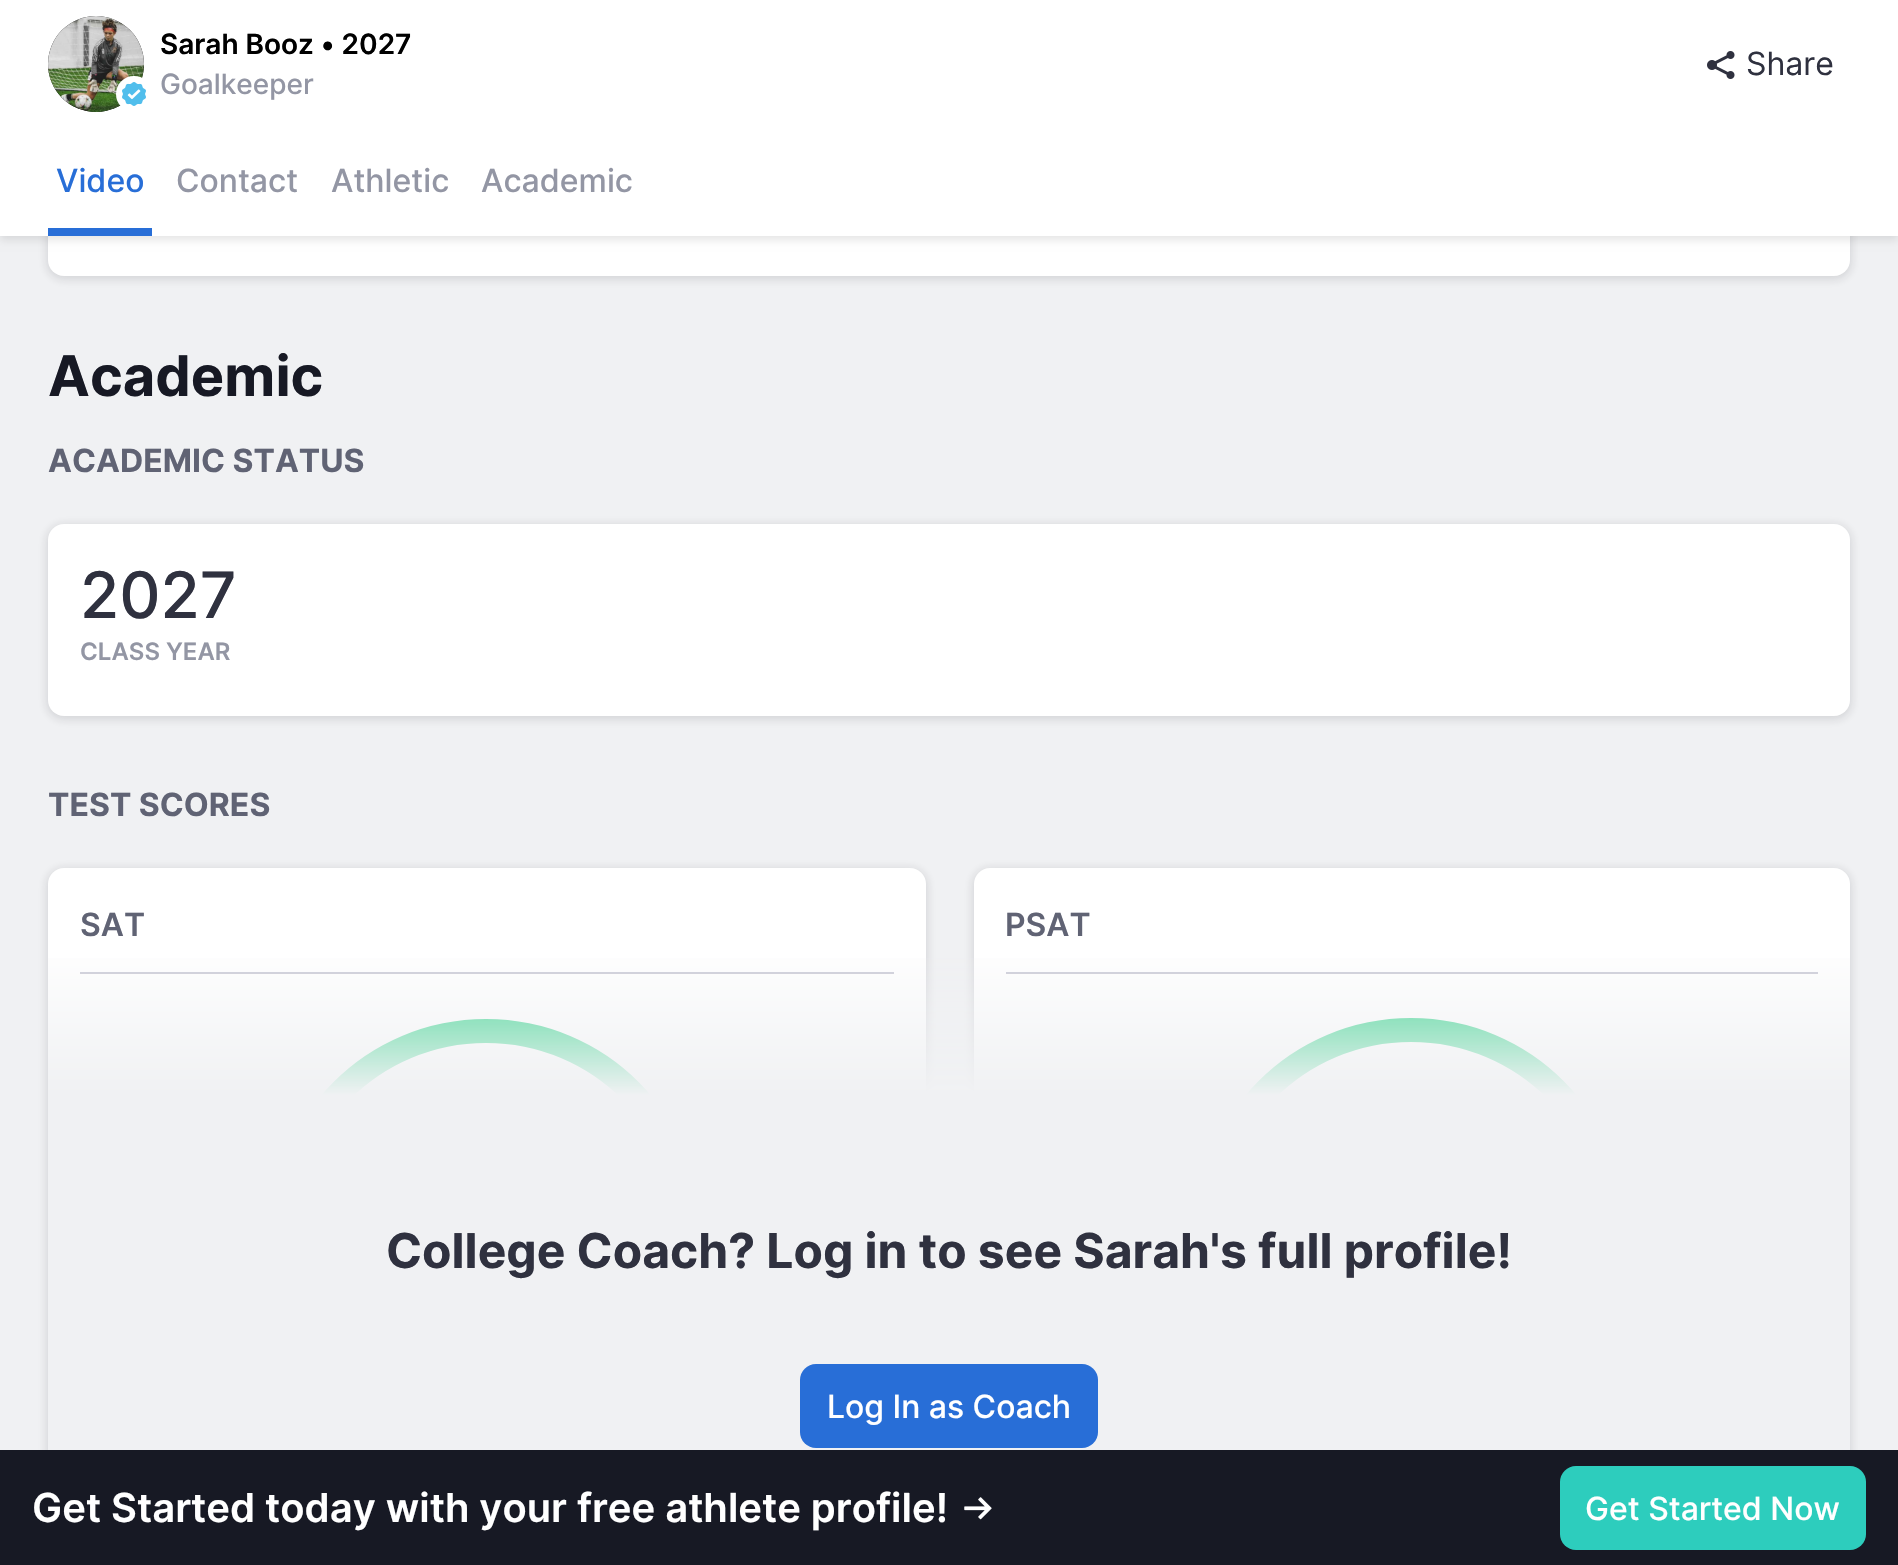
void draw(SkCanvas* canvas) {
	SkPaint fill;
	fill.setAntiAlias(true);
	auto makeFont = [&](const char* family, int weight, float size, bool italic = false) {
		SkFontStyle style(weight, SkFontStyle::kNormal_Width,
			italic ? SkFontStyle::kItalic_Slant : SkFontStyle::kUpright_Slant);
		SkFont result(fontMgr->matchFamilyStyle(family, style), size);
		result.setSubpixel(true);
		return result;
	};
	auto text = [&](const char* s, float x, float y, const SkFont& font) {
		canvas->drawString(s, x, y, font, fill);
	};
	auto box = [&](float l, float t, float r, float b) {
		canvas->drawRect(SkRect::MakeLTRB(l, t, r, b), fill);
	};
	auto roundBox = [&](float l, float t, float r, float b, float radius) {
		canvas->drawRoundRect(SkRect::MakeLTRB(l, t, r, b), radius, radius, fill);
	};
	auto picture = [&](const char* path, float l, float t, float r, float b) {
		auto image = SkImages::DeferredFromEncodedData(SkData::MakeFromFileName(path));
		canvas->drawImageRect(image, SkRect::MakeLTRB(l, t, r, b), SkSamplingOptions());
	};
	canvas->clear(0xFFF0F1F3);
	fill.setColor(0x1F171924);
	fill.setMaskFilter(SkMaskFilter::MakeBlur(kNormal_SkBlurStyle, 4));
	canvas->drawRoundRect(SkRect::MakeLTRB(46, -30, 1852, 280), 18, 18, fill);
	fill.setMaskFilter(nullptr);
	fill.setColor(0xFFFFFFFF);
	roundBox(48, -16, 1850, 276, 16);
	fill.setColor(0x1A000000);
	fill.setMaskFilter(SkMaskFilter::MakeBlur(kNormal_SkBlurStyle, 4));
	canvas->drawRect(SkRect::MakeLTRB(0, 128, 1898, 240), fill);
	fill.setMaskFilter(nullptr);
	fill.setColor(0xFFFFFFFF);
	box(0, 0, 1898, 236);
	fill.setColor(0xFF000000);
	canvas->drawCircle(96, 64, 48, fill);
	picture("image0.png", 48, 16, 144, 112);
	fill.setColor(0xFFFFFFFF);
	canvas->drawCircle(134, 94, 15, fill);
	fill.setStyle(SkPaint::kStroke_Style);
	fill.setStrokeWidth(6);
	canvas->drawCircle(134, 94, 15, fill);
	picture("image1.png", 122, 82, 146, 106);
	picture("image2.png", 1707, 51, 1735, 79);
	fill.setStyle(SkPaint::kFill_Style);
	fill.setColor(0xFF286ED7);
	box(48, 228, 152, 236);
	fill.setColor(0x1F171924);
	fill.setMaskFilter(SkMaskFilter::MakeBlur(kNormal_SkBlurStyle, 4));
	canvas->drawRoundRect(SkRect::MakeLTRB(46, 524, 1852, 720), 18, 18, fill);
	fill.setMaskFilter(nullptr);
	fill.setColor(0xFFFFFFFF);
	roundBox(48, 524, 1850, 716, 16);
	fill.setColor(0x1F171924);
	fill.setMaskFilter(SkMaskFilter::MakeBlur(kNormal_SkBlurStyle, 4));
	canvas->drawRoundRect(SkRect::MakeLTRB(46, 868, 928, 1538), 18, 18, fill);
	fill.setMaskFilter(nullptr);
	fill.setColor(0xFFFFFFFF);
	roundBox(48, 868, 926, 1534, 16);
	fill.setColor(0xFFC9CAD5);
	box(80, 972, 894, 974);
	fill.setStyle(SkPaint::kStroke_Style);
	fill.setStrokeWidth(24);
	fill.setStrokeCap(SkPaint::kRound_Cap);
	fill.setColor(0xFF2DD287);
	canvas->drawPath(SkPathBuilder().moveTo(282, 1235).cubicTo(282, 1122, 373.5f, 1031, 486, 1031).cubicTo(599, 1031, 690, 1122, 690, 1235).cubicTo(690, 1347.5f, 599, 1439, 486, 1439).cubicTo(373.5f, 1439, 282, 1347.5f, 282, 1235).detach(), fill);
	fill.setStyle(SkPaint::kFill_Style);
	fill.setColor(0x1F171924);
	fill.setMaskFilter(SkMaskFilter::MakeBlur(kNormal_SkBlurStyle, 4));
	canvas->drawRoundRect(SkRect::MakeLTRB(972, 868, 1852, 1538), 18, 18, fill);
	fill.setMaskFilter(nullptr);
	fill.setColor(0xFFFFFFFF);
	roundBox(974, 868, 1850, 1534, 16);
	fill.setColor(0xFFC9CAD5);
	box(1006, 972, 1818, 974);
	fill.setStyle(SkPaint::kStroke_Style);
	fill.setColor(0xFF2DD287);
	canvas->drawPath(SkPathBuilder().moveTo(1207, 1234).cubicTo(1207, 1121, 1298.5f, 1030, 1411, 1030).cubicTo(1524, 1030, 1615, 1121, 1615, 1234).cubicTo(1615, 1346.5f, 1524, 1438, 1411, 1438).cubicTo(1298.5f, 1438, 1207, 1346.5f, 1207, 1234).detach(), fill);
	fill.setStyle(SkPaint::kFill_Style);
	{
		const SkColor colors[] = {0xFFF0F1F3, 0xFFF0F1F3, 0x00F0F1F3};
		const float stops[] = {0, 0.8f, 1};
		const SkPoint ends[] = {{949, 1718}, {949, 940}};
		fill.setShader(SkGradientShader::MakeLinear(ends, colors, stops, 3, SkTileMode::kClamp));
		fill.setAlpha(255);
	}
	box(48, 958, 1850, 1450);
	fill.setShader(nullptr);
	fill.setColor(0xFF286ED7);
	roundBox(800, 1364, 1098, 1448, 16);
	fill.setColor(0xFF171924);
	box(0, 1450, 1898, 1565);
	picture("image3.png", 964, 1497, 992, 1520);
	fill.setColor(0xFF2DCDBD);
	roundBox(1560, 1466, 1866, 1550, 16);
	auto font1 = makeFont("Inter", 600, 28);
	fill.setColor(0xFF000000);
	text("Sarah Booz • 2027", 160, 54, font1);
	auto font2 = makeFont("Inter", 500, 28);
	fill.setColor(0xFF9396A4);
	text("Goalkeeper", 160, 94, font2);
	auto font3 = makeFont("Inter", 400, 32);
	fill.setColor(0xFF2F313F);
	text("Share", 1746, 75, font3);
	auto font4 = makeFont("Inter", 500, 32);
	fill.setColor(0xFF286ED7);
	text("Video", 56, 192, font4);
	fill.setColor(0xFF9396A4);
	text("Contact", 176, 192, font4);
	text("Athletic", 331, 192, font4);
	text("Academic", 481, 192, font4);
	auto font5 = makeFont("Inter", 700, 56);
	fill.setColor(0xFF171924);
	text("Academic", 48, 396, font5);
	auto font6 = makeFont("Inter", 700, 32);
	fill.setColor(0xFF606374);
	text("ACADEMIC STATUS", 48, 472, font6);
	auto font7 = makeFont("Inter", 500, 64);
	fill.setColor(0xFF2F313F);
	text("2027", 80, 618, font7);
	auto font8 = makeFont("Inter", 600, 24);
	fill.setColor(0xFF9396A4);
	text("CLASS YEAR", 80, 660, font8);
	fill.setColor(0xFF606374);
	text("TEST SCORES", 48, 816, font6);
	auto font9 = makeFont("Inter", 600, 32);
	text("SAT", 80, 936, font9);
	text("PSAT", 1005, 936, font9);
	auto font10 = makeFont("Inter", 700, 48);
	fill.setColor(0xFF2F313F);
	text("College Coach? Log in to see Sarah's full profile!", 386, 1268, font10);
	fill.setColor(0xFFFFFFFF);
	text("Log In as Coach", 827, 1418, font4);
	auto font11 = makeFont("Inter", 600, 40);
	text("Get Started today with your free athlete profile!", 32, 1522, font11);
	text("Get Started Now", 1585, 1520, font4);
}
